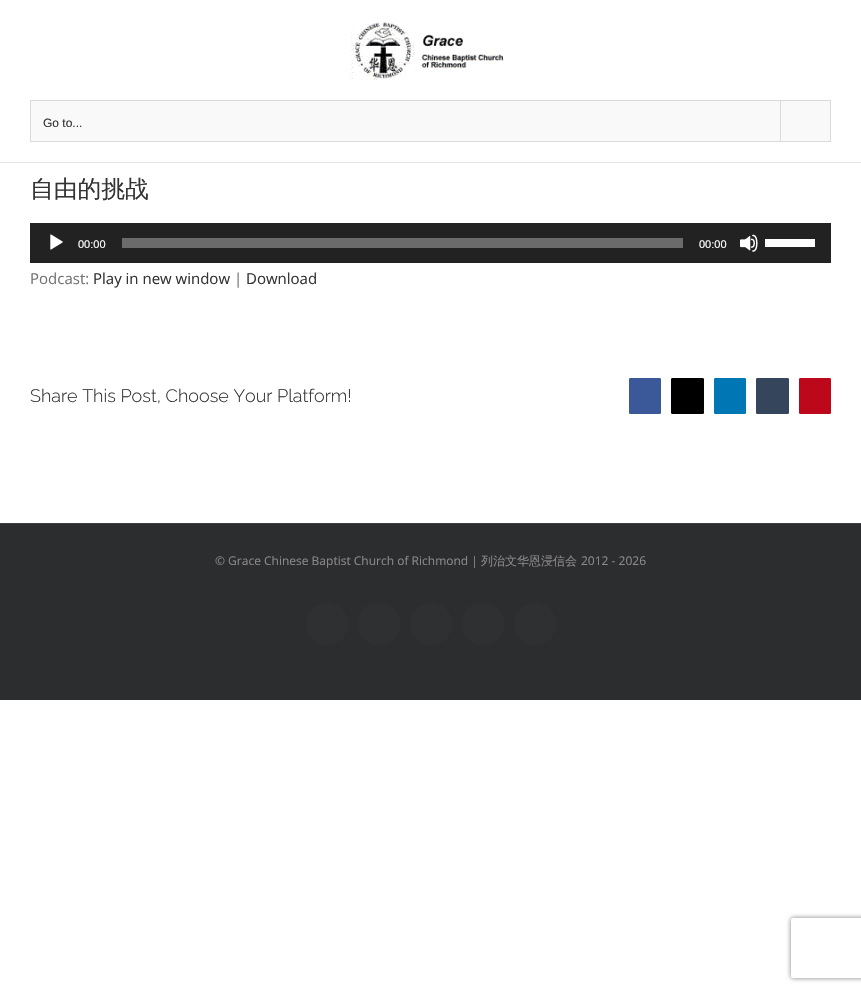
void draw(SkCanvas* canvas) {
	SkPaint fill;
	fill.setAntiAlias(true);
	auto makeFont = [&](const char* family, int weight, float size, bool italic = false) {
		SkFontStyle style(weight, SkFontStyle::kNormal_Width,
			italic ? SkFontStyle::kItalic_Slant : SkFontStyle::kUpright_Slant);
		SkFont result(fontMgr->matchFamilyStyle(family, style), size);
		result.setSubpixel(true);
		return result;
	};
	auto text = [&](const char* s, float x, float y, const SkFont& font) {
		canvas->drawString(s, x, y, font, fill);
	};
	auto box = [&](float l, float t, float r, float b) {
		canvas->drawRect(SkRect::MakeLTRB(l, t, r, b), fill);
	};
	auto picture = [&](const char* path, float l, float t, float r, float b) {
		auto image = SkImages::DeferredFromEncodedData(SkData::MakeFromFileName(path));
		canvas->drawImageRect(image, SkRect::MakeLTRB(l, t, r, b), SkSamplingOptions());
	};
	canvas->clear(0xFFFFFFFF);
	fill.setColor(0xFFE5E5E5);
	box(0, 162, 861, 163);
	picture("image0.png", 350, 21, 504, 80);
	fill.setColor(0xFFF9F9F9);
	canvas->drawRect(SkRect::MakeLTRB(30.5f, 100.5f, 830.5f, 141.5f), fill);
	fill.setStyle(SkPaint::kStroke_Style);
	fill.setStrokeWidth(1);
	fill.setColor(0xFFDADADA);
	canvas->drawRect(SkRect::MakeLTRB(30.5f, 100.5f, 830.5f, 141.5f), fill);
	fill.setStyle(SkPaint::kFill_Style);
	box(780, 101, 781, 141);
	fill.setColor(0xFF222222);
	box(30, 223, 831, 263);
	picture("image1.png", 50, 234, 63, 250);
	fill.setColor(0xFF6B6B6B);
	box(122, 238, 683, 248);
	picture("image2.png", 740, 234, 758, 252);
	fill.setColor(0xFFFFFFFF);
	box(765, 239, 815, 247);
	fill.setColor(0xFF3B5998);
	canvas->drawRoundRect(SkRect::MakeLTRB(629.5f, 378.5f, 660.5f, 413.5f), 0.5f, 0.5f, fill);
	fill.setStyle(SkPaint::kStroke_Style);
	canvas->drawRoundRect(SkRect::MakeLTRB(629.5f, 378.5f, 660.5f, 413.5f), 0.5f, 0.5f, fill);
	fill.setStyle(SkPaint::kFill_Style);
	fill.setColor(0xFF000000);
	canvas->drawRoundRect(SkRect::MakeLTRB(671.5f, 378.5f, 703.5f, 413.5f), 0.5f, 0.5f, fill);
	fill.setStyle(SkPaint::kStroke_Style);
	canvas->drawRoundRect(SkRect::MakeLTRB(671.5f, 378.5f, 703.5f, 413.5f), 0.5f, 0.5f, fill);
	fill.setStyle(SkPaint::kFill_Style);
	fill.setColor(0xFF0077B5);
	canvas->drawRoundRect(SkRect::MakeLTRB(714.5f, 378.5f, 745.5f, 413.5f), 0.5f, 0.5f, fill);
	fill.setStyle(SkPaint::kStroke_Style);
	canvas->drawRoundRect(SkRect::MakeLTRB(714.5f, 378.5f, 745.5f, 413.5f), 0.5f, 0.5f, fill);
	fill.setStyle(SkPaint::kFill_Style);
	fill.setColor(0xFF35465C);
	canvas->drawRoundRect(SkRect::MakeLTRB(756.5f, 378.5f, 788.5f, 413.5f), 0.5f, 0.5f, fill);
	fill.setStyle(SkPaint::kStroke_Style);
	canvas->drawRoundRect(SkRect::MakeLTRB(756.5f, 378.5f, 788.5f, 413.5f), 0.5f, 0.5f, fill);
	fill.setStyle(SkPaint::kFill_Style);
	fill.setColor(0xFFBD081C);
	canvas->drawRoundRect(SkRect::MakeLTRB(799.5f, 378.5f, 830.5f, 413.5f), 0.5f, 0.5f, fill);
	fill.setStyle(SkPaint::kStroke_Style);
	canvas->drawRoundRect(SkRect::MakeLTRB(799.5f, 378.5f, 830.5f, 413.5f), 0.5f, 0.5f, fill);
	fill.setStyle(SkPaint::kFill_Style);
	fill.setColor(0xFF2C2D2F);
	box(0, 524, 861, 700);
	fill.setColor(0xFF404042);
	box(0, 523, 861, 524);
	fill.setColor(0xFF2F3032);
	canvas->drawCircle(327, 624, 21, fill);
	canvas->drawCircle(379, 624, 21, fill);
	canvas->drawCircle(431, 624, 21, fill);
	canvas->drawCircle(483, 624, 21, fill);
	canvas->drawCircle(535, 624, 21, fill);
	canvas->save();
	canvas->clipPath(SkPathBuilder(SkPathFillType::kEvenOdd).moveTo(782, 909).lineTo(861, 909).lineTo(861, 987).lineTo(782, 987).close().moveTo(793, 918).lineTo(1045, 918).cubicTo(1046, 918, 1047, 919, 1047, 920).lineTo(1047, 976).cubicTo(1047, 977, 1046, 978, 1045, 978).lineTo(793, 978).cubicTo(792, 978, 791, 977, 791, 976).lineTo(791, 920).cubicTo(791, 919, 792, 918, 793, 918).close().detach(), true);
	fill.setColor(0xFF808080);
	fill.setMaskFilter(SkMaskFilter::MakeBlur(kNormal_SkBlurStyle, 2.5f));
	canvas->drawRoundRect(SkRect::MakeLTRB(791, 918, 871, 978), 2, 2, fill);
	fill.setMaskFilter(nullptr);
	canvas->restore();
	auto font1 = makeFont("Liberation Sans", 400, 12);
	fill.setColor(0xFF333333);
	text("Go to...", 43, 127, font1);
	auto font2 = makeFont("WenQuanYi Zen Hei", 500, 23.75f);
	text("自由的挑战", 30, 197, font2);
	auto font3 = makeFont("Liberation Sans", 400, 11);
	fill.setColor(0xFFFFFFFF);
	text("00:00", 78, 248, font3);
	text("00:00", 699, 248, font3);
	auto font4 = makeFont("Open Sans", 400, 15);
	fill.setColor(0xFF747474);
	text("Podcast:", 30, 284, font4);
	fill.setColor(0xFF333333);
	text("Play in new window", 93, 284, font4);
	fill.setColor(0xFF747474);
	text("|", 234, 284, font4);
	fill.setColor(0xFF333333);
	text("Download", 246, 284, font4);
	auto font5 = makeFont("Raleway", 300, 18);
	text("Share This Post, Choose Your Platform!", 30, 402, font5);
	auto font6 = makeFont("Open Sans", 400, 12);
	fill.setColor(0xFF8C8989);
	text("© Grace Chinese Baptist Church of Richmond |", 215, 565, font6);
	auto font7 = makeFont("WenQuanYi Zen Hei", 500, 12);
	text("列治文华恩浸信会", 481, 565, font7);
	text("2012 - 2026", 581, 565, font6);
}
